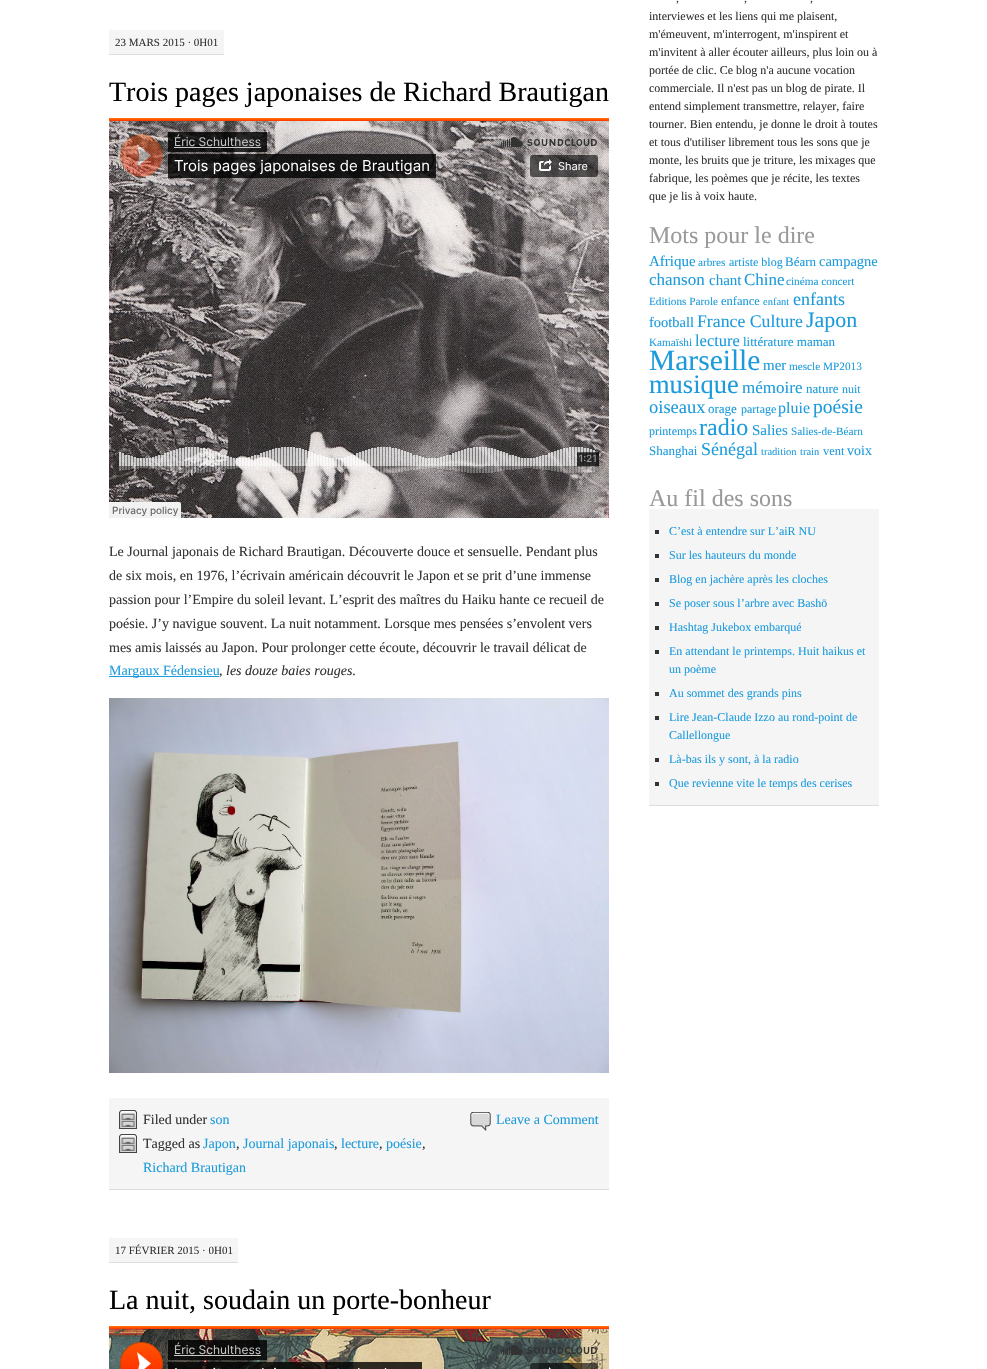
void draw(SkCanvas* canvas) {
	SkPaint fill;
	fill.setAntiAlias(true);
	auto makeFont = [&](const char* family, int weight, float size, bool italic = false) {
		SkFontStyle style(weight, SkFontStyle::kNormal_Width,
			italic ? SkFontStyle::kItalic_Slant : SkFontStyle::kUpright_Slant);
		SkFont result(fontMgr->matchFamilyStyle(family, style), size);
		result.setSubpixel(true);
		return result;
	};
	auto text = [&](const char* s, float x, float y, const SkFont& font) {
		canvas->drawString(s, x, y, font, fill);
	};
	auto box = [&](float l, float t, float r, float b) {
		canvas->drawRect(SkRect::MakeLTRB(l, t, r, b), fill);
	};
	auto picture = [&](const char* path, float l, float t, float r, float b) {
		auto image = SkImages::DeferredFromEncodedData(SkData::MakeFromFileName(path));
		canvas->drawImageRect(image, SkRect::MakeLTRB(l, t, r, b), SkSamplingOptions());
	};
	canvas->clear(0xFFFFFFFF);
	fill.setColor(0xFFF5F5F5);
	box(109, 30, 224, 54);
	fill.setColor(0xFFDDDDDD);
	box(109, 54, 224, 55);
	picture("image0.png", 109, 118, 609, 518);
	fill.setColor(0xFF1C9BDC);
	box(109, 676, 219, 677);
	picture("image1.png", 109, 698, 609, 1073);
	fill.setColor(0xFFF5F5F5);
	box(109, 1098, 609, 1189);
	fill.setColor(0xFFDDDDDD);
	box(109, 1189, 609, 1190);
	picture("image2.png", 119, 1110, 137, 1129);
	picture("image3.png", 470, 1112, 491, 1131);
	picture("image2.png", 119, 1134, 137, 1153);
	fill.setColor(0xFFF5F5F5);
	box(109, 1238, 238, 1262);
	fill.setColor(0xFFDDDDDD);
	box(109, 1262, 238, 1263);
	picture("image4.png", 109, 1326, 609, 1369);
	fill.setColor(0xFFF5F5F5);
	box(649, 509, 879, 805);
	fill.setColor(0xFFDDDDDD);
	box(649, 805, 879, 806);
	fill.setColor(0xFF333333);
	box(655, 530, 659, 534);
	box(655, 554, 659, 558);
	box(655, 578, 659, 582);
	box(655, 602, 659, 606);
	box(655, 626, 659, 630);
	box(655, 650, 659, 654);
	box(655, 692, 659, 696);
	box(655, 716, 659, 720);
	box(655, 758, 659, 762);
	box(655, 782, 659, 786);
	auto font1 = makeFont("Liberation Serif", 400, 11);
	text("23 MARS 2015 · 0H01", 115, 46, font1);
	auto font2 = makeFont("Liberation Serif", 400, 28);
	fill.setColor(0xFF000000);
	text("Trois pages japonaises de Richard Brautigan", 109, 101, font2);
	auto font3 = makeFont("Liberation Serif", 400, 14);
	fill.setColor(0xFF333333);
	text("Le Journal japonais de Richard Brautigan. Découverte douce et sensuelle. Pendant plus", 109, 556, font3);
	text("de six mois, en 1976, l’écrivain américain découvrit le Japon et se prit d’une immense", 109, 580, font3);
	text("passion pour l’Empire du soleil levant. L’esprit des maîtres du Haiku hante ce recueil de", 109, 604, font3);
	text("poésie. J’y navigue souvent. La nuit notamment. Lorsque mes pensées s’envolent vers", 109, 628, font3);
	text("mes amis laissés au Japon. Pour prolonger cette écoute, découvrir le travail délicat de", 109, 652, font3);
	fill.setColor(0xFF1C9BDC);
	text("Margaux Fédensieu", 109, 675, font3);
	fill.setColor(0xFF333333);
	text(",", 219, 675, font3);
	auto font4 = makeFont("Liberation Serif", 400, 14, true);
	text("les douze baies rouges.", 226, 675, font4);
	text("Filed under", 143, 1124, font3);
	fill.setColor(0xFF1C9BDC);
	text("son", 210, 1124, font3);
	text("Leave a Comment", 496, 1124, font3);
	fill.setColor(0xFF333333);
	text("Tagged as", 143, 1148, font3);
	fill.setColor(0xFF1C9BDC);
	text("Japon", 203, 1148, font3);
	fill.setColor(0xFF333333);
	text(",", 236, 1148, font3);
	fill.setColor(0xFF1C9BDC);
	text("Journal japonais", 243, 1148, font3);
	fill.setColor(0xFF333333);
	text(",", 334, 1148, font3);
	fill.setColor(0xFF1C9BDC);
	text("lecture", 341, 1148, font3);
	fill.setColor(0xFF333333);
	text(",", 379, 1148, font3);
	fill.setColor(0xFF1C9BDC);
	text("poésie", 386, 1148, font3);
	fill.setColor(0xFF333333);
	text(",", 422, 1148, font3);
	fill.setColor(0xFF1C9BDC);
	text("Richard Brautigan", 143, 1172, font3);
	fill.setColor(0xFF333333);
	text("17 FÉVRIER 2015 · 0H01", 115, 1254, font1);
	fill.setColor(0xFF000000);
	text("La nuit, soudain un porte-bonheur", 109, 1309, font2);
	auto font5 = makeFont("Liberation Serif", 400, 12);
	fill.setColor(0xFF333333);
	text(",", 676, 2, font5);
	text(",", 744, 2, font5);
	text(",", 810, 2, font5);
	text("interviewes et les liens qui me plaisent,", 649, 20, font5);
	text("m'émeuvent, m'interrogent, m'inspirent et", 649, 38, font5);
	text("m'invitent à aller écouter ailleurs, plus loin ou à", 649, 56, font5);
	text("portée de clic. Ce blog n'a aucune vocation", 649, 74, font5);
	text("commerciale. Il n'est pas un blog de pirate. Il", 649, 92, font5);
	text("entend simplement transmettre, relayer, faire", 649, 110, font5);
	text("tourner. Bien entendu, je donne le droit à toutes", 649, 128, font5);
	text("et tous d'utiliser librement tous les sons que je", 649, 146, font5);
	text("monte, les bruits que je triture, les mixages que", 649, 164, font5);
	text("fabrique, les poèmes que je récite, les textes", 649, 182, font5);
	text("que je lis à voix haute.", 649, 200, font5);
	auto font6 = makeFont("Liberation Serif", 400, 24);
	fill.setColor(0xFF999999);
	text("Mots pour le dire", 649, 243, font6);
	auto font7 = makeFont("Liberation Serif", 400, 15);
	fill.setColor(0xFF1C9BDC);
	text("Afrique", 649, 266, font7);
	auto font8 = makeFont("Liberation Serif", 400, 11.25f);
	text("arbres", 698, 266, font8);
	text("artiste blog", 729, 266, font5);
	auto font9 = makeFont("Liberation Serif", 400, 13);
	text("Béarn", 785, 266, font9);
	auto font10 = makeFont("Liberation Serif", 400, 14.5f);
	text("campagne", 819, 266, font10);
	auto font11 = makeFont("Liberation Serif", 400, 17);
	text("chanson", 649, 285, font11);
	text("chant", 709, 285, font7);
	text("Chine", 744, 285, font11);
	text("cinéma concert", 786, 285, font8);
	text("Editions Parole", 649, 305, font8);
	auto font12 = makeFont("Liberation Serif", 400, 12.5f);
	text("enfance", 721, 305, font12);
	auto font13 = makeFont("Liberation Serif", 400, 10.5f);
	text("enfant", 763, 305, font13);
	auto font14 = makeFont("Liberation Serif", 400, 18);
	text("enfants", 793, 305, font14);
	text("football", 649, 327, font10);
	auto font15 = makeFont("Liberation Serif", 400, 17.75f);
	text("France Culture", 697, 327, font15);
	auto font16 = makeFont("Liberation Serif", 400, 22);
	text("Japon", 806, 327, font16);
	text("Kamaïshi", 649, 346, font8);
	auto font17 = makeFont("Liberation Serif", 400, 16.5f);
	text("lecture", 695, 346, font17);
	text("littérature maman", 743, 346, font9);
	auto font18 = makeFont("Liberation Serif", 400, 29.5f);
	text("Marseille", 649, 370, font18);
	text("mer", 763, 370, font7);
	text("mescle MP2013", 789, 370, font8);
	auto font19 = makeFont("Liberation Serif", 400, 26.5f);
	text("musique", 649, 393, font19);
	text("mémoire", 742, 393, font11);
	text("nature", 806, 393, font9);
	text("nuit", 842, 393, font5);
	auto font20 = makeFont("Liberation Serif", 400, 18.5f);
	text("oiseaux", 649, 413, font20);
	text("orage", 708, 413, font9);
	text("partage", 741, 413, font5);
	auto font21 = makeFont("Liberation Serif", 400, 16);
	text("pluie", 778, 413, font21);
	auto font22 = makeFont("Liberation Serif", 400, 19.5f);
	text("poésie", 813, 413, font22);
	text("printemps", 649, 435, font5);
	text("radio", 699, 435, font6);
	text("Salies", 752, 435, font7);
	text("Salies-de-Béarn", 791, 435, font8);
	text("Shanghai", 649, 455, font9);
	text("Sénégal", 701, 455, font14);
	text("tradition", 761, 455, font13);
	text("train", 800, 455, font13);
	text("vent", 823, 455, font12);
	text("voix", 847, 455, font3);
	fill.setColor(0xFF999999);
	text("Au fil des sons", 649, 506, font6);
	fill.setColor(0xFF1C9BDC);
	text("C’est à entendre sur L’aiR NU", 669, 535, font5);
	text("Sur les hauteurs du monde", 669, 559, font5);
	text("Blog en jachère après les cloches", 669, 583, font5);
	text("Se poser sous l’arbre avec Bashō", 669, 607, font5);
	text("Hashtag Jukebox embarqué", 669, 631, font5);
	text("En attendant le printemps. Huit haikus et", 669, 655, font5);
	text("un poème", 669, 673, font5);
	text("Au sommet des grands pins", 669, 697, font5);
	text("Lire Jean-Claude Izzo au rond-point de", 669, 721, font5);
	text("Callellongue", 669, 739, font5);
	text("Là-bas ils y sont, à la radio", 669, 763, font5);
	text("Que revienne vite le temps des cerises", 669, 787, font5);
}
